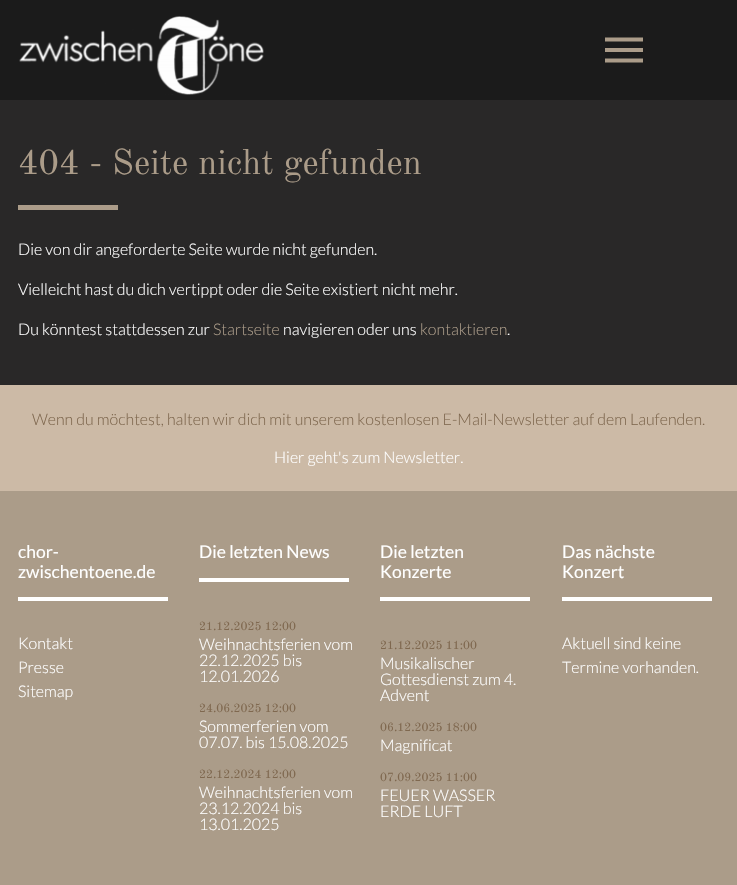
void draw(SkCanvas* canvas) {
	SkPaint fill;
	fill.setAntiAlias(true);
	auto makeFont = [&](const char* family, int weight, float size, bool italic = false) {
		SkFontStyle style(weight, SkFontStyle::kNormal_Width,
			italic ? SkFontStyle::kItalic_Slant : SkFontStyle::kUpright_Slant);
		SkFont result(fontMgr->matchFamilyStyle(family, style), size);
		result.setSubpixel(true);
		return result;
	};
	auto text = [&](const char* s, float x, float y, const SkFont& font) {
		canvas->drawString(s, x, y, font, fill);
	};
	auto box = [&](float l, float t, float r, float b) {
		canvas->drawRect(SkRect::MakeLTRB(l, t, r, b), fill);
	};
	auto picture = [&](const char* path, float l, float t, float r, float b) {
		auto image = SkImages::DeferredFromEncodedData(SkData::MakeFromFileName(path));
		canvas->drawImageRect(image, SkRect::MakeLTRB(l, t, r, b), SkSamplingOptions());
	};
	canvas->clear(0xFF292828);
	fill.setColor(0xFF1B1B1B);
	box(0, 0, 737, 100);
	picture("image0.png", 19, 16, 264, 95);
	fill.setColor(0xFFAB9C89);
	canvas->drawPath(SkPathBuilder().moveTo(605, 37.5f).lineTo(643, 37.5f).lineTo(643, 41.5f).lineTo(605, 41.5f).close().moveTo(605, 52).lineTo(605, 48).lineTo(643, 48).lineTo(643, 52).close().moveTo(605, 62.5f).lineTo(605, 58.5f).lineTo(643, 58.5f).lineTo(643, 62.5f).close().detach(), fill);
	box(18, 205, 118, 210);
	box(0, 491, 737, 885);
	fill.setColor(0xFFCCBAA6);
	box(0, 385, 737, 491);
	fill.setColor(0xFFFFFFFF);
	box(18, 597, 168, 601);
	box(199, 578, 349, 582);
	box(380, 597, 530, 601);
	box(562, 597, 712, 601);
	auto font1 = makeFont("Old Standard TT", 400, 35.25f);
	fill.setColor(0xFFAB9C89);
	text("404 - Seite nicht gefunden", 18, 174, font1);
	auto font2 = makeFont("Lato", 300, 16);
	fill.setColor(0xFFFFFFFF);
	text("Die von dir angeforderte Seite wurde nicht gefunden.", 18, 255, font2);
	text("Vielleicht hast du dich vertippt oder die Seite existiert nicht mehr.", 18, 295, font2);
	text("Du könntest stattdessen zur", 18, 335, font2);
	fill.setColor(0xFFAB9C89);
	text("Startseite", 213, 335, font2);
	fill.setColor(0xFFFFFFFF);
	text("navigieren oder uns", 283, 335, font2);
	fill.setColor(0xFFAB9C89);
	text("kontaktieren", 420, 335, font2);
	fill.setColor(0xFFFFFFFF);
	text(".", 507, 335, font2);
	fill.setColor(0xFF7F684F);
	text("Wenn du möchtest, halten wir dich mit unserem kostenlosen E-Mail-Newsletter auf dem Laufenden.", 32, 425, font2);
	fill.setColor(0xFFFFFFFF);
	text("Hier geht's zum Newsletter.", 274, 463, font2);
	auto font3 = makeFont("Lato", 400, 17.5f);
	text("chor-", 18, 558, font3);
	text("zwischentoene.de", 18, 578, font3);
	text("Kontakt", 18, 649, font2);
	text("Presse", 18, 673, font2);
	text("Sitemap", 18, 697, font2);
	text("Die letzten News", 199, 558, font3);
	auto font4 = makeFont("Old Standard TT", 400, 12);
	fill.setColor(0xFF7F684F);
	text("21.12.2025 12:00", 199, 630, font4);
	fill.setColor(0xFFFFFFFF);
	text("Weihnachtsferien vom", 199, 650, font2);
	text("22.12.2025 bis", 199, 666, font2);
	text("12.01.2026", 199, 682, font2);
	fill.setColor(0xFF7F684F);
	text("24.06.2025 12:00", 199, 712, font4);
	fill.setColor(0xFFFFFFFF);
	text("Sommerferien vom", 199, 732, font2);
	text("07.07. bis 15.08.2025", 199, 748, font2);
	fill.setColor(0xFF7F684F);
	text("22.12.2024 12:00", 199, 778, font4);
	fill.setColor(0xFFFFFFFF);
	text("Weihnachtsferien vom", 199, 798, font2);
	text("23.12.2024 bis", 199, 814, font2);
	text("13.01.2025", 199, 830, font2);
	text("Die letzten", 380, 558, font3);
	text("Konzerte", 380, 578, font3);
	fill.setColor(0xFF7F684F);
	text("21.12.2025 11:00", 380, 649, font4);
	fill.setColor(0xFFFFFFFF);
	text("Musikalischer", 380, 669, font2);
	text("Gottesdienst zum 4.", 380, 685, font2);
	text("Advent", 380, 701, font2);
	fill.setColor(0xFF7F684F);
	text("06.12.2025 18:00", 380, 731, font4);
	fill.setColor(0xFFFFFFFF);
	text("Magnificat", 380, 751, font2);
	fill.setColor(0xFF7F684F);
	text("07.09.2025 11:00", 380, 781, font4);
	fill.setColor(0xFFFFFFFF);
	text("FEUER WASSER", 380, 801, font2);
	text("ERDE LUFT", 380, 817, font2);
	text("Das nächste", 562, 558, font3);
	text("Konzert", 562, 578, font3);
	text("Aktuell sind keine", 562, 649, font2);
	text("Termine vorhanden.", 562, 673, font2);
}
